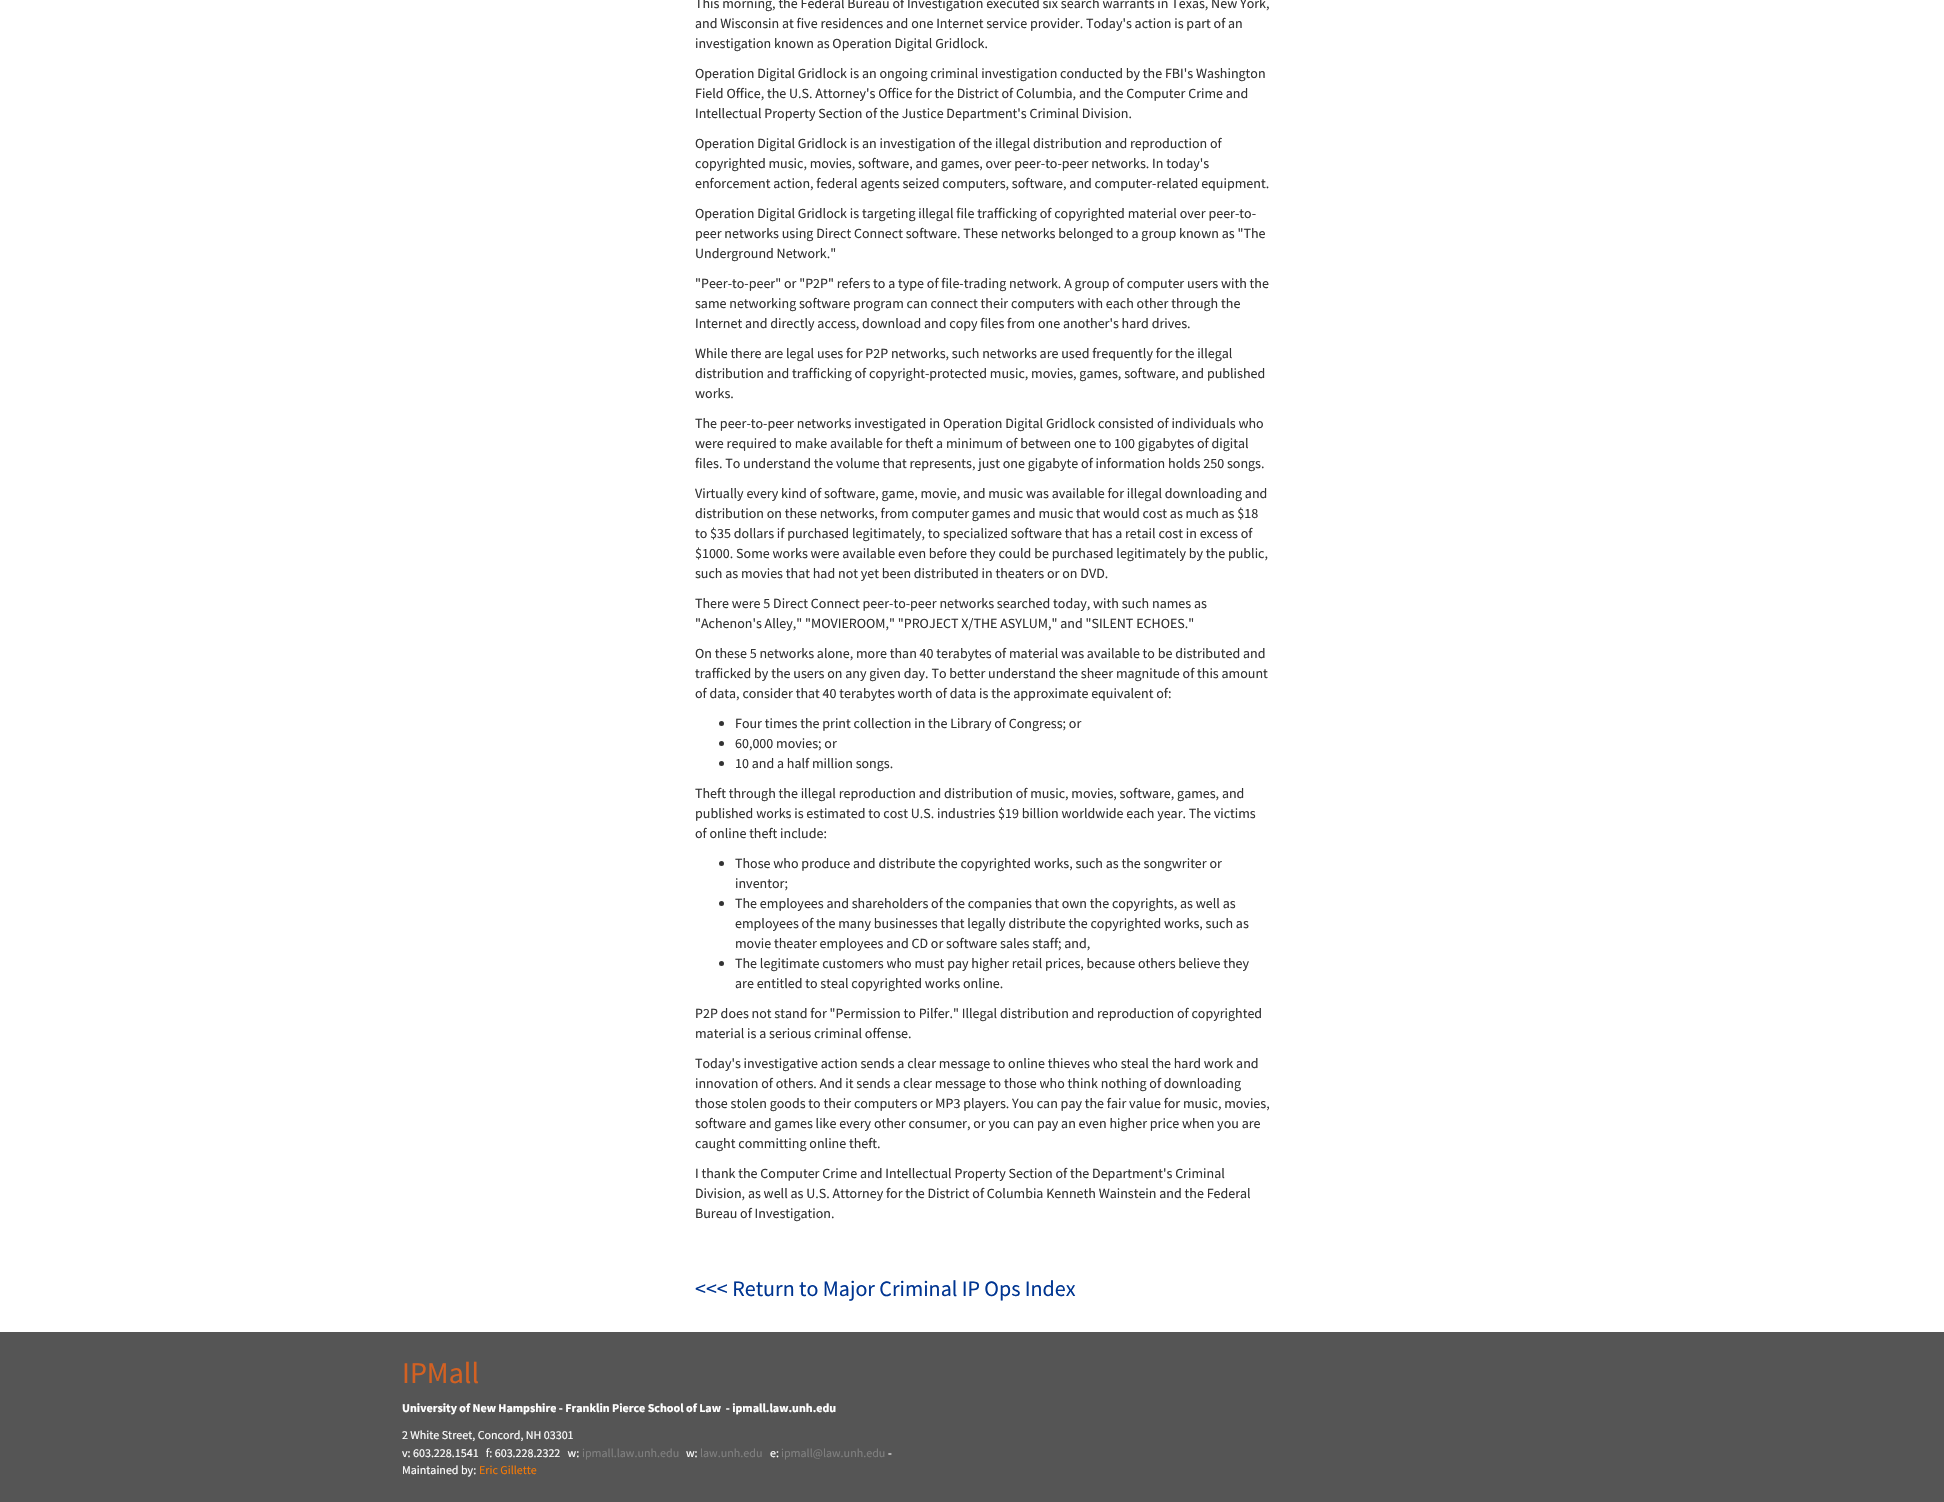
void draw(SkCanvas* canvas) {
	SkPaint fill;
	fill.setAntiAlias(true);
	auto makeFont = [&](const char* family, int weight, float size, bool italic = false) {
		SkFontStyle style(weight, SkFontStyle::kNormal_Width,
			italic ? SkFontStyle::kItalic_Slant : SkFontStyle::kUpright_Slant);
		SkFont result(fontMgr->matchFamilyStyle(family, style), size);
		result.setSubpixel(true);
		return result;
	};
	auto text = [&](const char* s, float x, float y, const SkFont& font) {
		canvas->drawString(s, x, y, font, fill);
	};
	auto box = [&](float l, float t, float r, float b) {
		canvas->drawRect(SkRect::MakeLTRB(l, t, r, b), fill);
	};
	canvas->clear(0xFF555555);
	fill.setColor(0xFFFFFFFF);
	box(0, 0, 1944, 1332);
	fill.setColor(0xFF333333);
	canvas->drawCircle(721.5f, 723.5f, 2.5f, fill);
	canvas->drawCircle(721.5f, 743.5f, 2.5f, fill);
	canvas->drawCircle(721.5f, 763.5f, 2.5f, fill);
	canvas->drawCircle(721.5f, 863.5f, 2.5f, fill);
	canvas->drawCircle(721.5f, 903.5f, 2.5f, fill);
	canvas->drawCircle(721.5f, 963.5f, 2.5f, fill);
	auto font1 = makeFont("Source Sans Pro", 400, 14);
	text("This morning, the Federal Bureau of Investigation executed six search warrants in Texas, New York,", 695, 8, font1);
	text("and Wisconsin at five residences and one Internet service provider. Today's action is part of an", 695, 28, font1);
	text("investigation known as Operation Digital Gridlock.", 695, 48, font1);
	text("Operation Digital Gridlock is an ongoing criminal investigation conducted by the FBI's Washington", 695, 78, font1);
	text("Field Office, the U.S. Attorney's Office for the District of Columbia, and the Computer Crime and", 695, 98, font1);
	text("Intellectual Property Section of the Justice Department's Criminal Division.", 695, 118, font1);
	text("Operation Digital Gridlock is an investigation of the illegal distribution and reproduction of", 695, 148, font1);
	text("copyrighted music, movies, software, and games, over peer-to-peer networks. In today's", 695, 168, font1);
	text("enforcement action, federal agents seized computers, software, and computer-related equipment.", 695, 188, font1);
	text("Operation Digital Gridlock is targeting illegal file trafficking of copyrighted material over peer-to-", 695, 218, font1);
	text("peer networks using Direct Connect software. These networks belonged to a group known as \"The", 695, 238, font1);
	text("Underground Network.\"", 695, 258, font1);
	text("\"Peer-to-peer\" or \"P2P\" refers to a type of file-trading network. A group of computer users with the", 695, 288, font1);
	text("same networking software program can connect their computers with each other through the", 695, 308, font1);
	text("Internet and directly access, download and copy files from one another's hard drives.", 695, 328, font1);
	text("While there are legal uses for P2P networks, such networks are used frequently for the illegal", 695, 358, font1);
	text("distribution and trafficking of copyright-protected music, movies, games, software, and published", 695, 378, font1);
	text("works.", 695, 398, font1);
	text("The peer-to-peer networks investigated in Operation Digital Gridlock consisted of individuals who", 695, 428, font1);
	text("were required to make available for theft a minimum of between one to 100 gigabytes of digital", 695, 448, font1);
	text("files. To understand the volume that represents, just one gigabyte of information holds 250 songs.", 695, 468, font1);
	text("Virtually every kind of software, game, movie, and music was available for illegal downloading and", 695, 498, font1);
	text("distribution on these networks, from computer games and music that would cost as much as $18", 695, 518, font1);
	text("to $35 dollars if purchased legitimately, to specialized software that has a retail cost in excess of", 695, 538, font1);
	text("$1000. Some works were available even before they could be purchased legitimately by the public,", 695, 558, font1);
	text("such as movies that had not yet been distributed in theaters or on DVD.", 695, 578, font1);
	text("There were 5 Direct Connect peer-to-peer networks searched today, with such names as", 695, 608, font1);
	text("\"Achenon's Alley,\" \"MOVIEROOM,\" \"PROJECT X/THE ASYLUM,\" and \"SILENT ECHOES.\"", 695, 628, font1);
	text("On these 5 networks alone, more than 40 terabytes of material was available to be distributed and", 695, 658, font1);
	text("trafficked by the users on any given day. To better understand the sheer magnitude of this amount", 695, 678, font1);
	text("of data, consider that 40 terabytes worth of data is the approximate equivalent of:", 695, 698, font1);
	text("Four times the print collection in the Library of Congress; or", 735, 728, font1);
	text("60,000 movies; or", 735, 748, font1);
	text("10 and a half million songs.", 735, 768, font1);
	text("Theft through the illegal reproduction and distribution of music, movies, software, games, and", 695, 798, font1);
	text("published works is estimated to cost U.S. industries $19 billion worldwide each year. The victims", 695, 818, font1);
	text("of online theft include:", 695, 838, font1);
	text("Those who produce and distribute the copyrighted works, such as the songwriter or", 735, 868, font1);
	text("inventor;", 735, 888, font1);
	text("The employees and shareholders of the companies that own the copyrights, as well as", 735, 908, font1);
	text("employees of the many businesses that legally distribute the copyrighted works, such as", 735, 928, font1);
	text("movie theater employees and CD or software sales staff; and,", 735, 948, font1);
	text("The legitimate customers who must pay higher retail prices, because others believe they", 735, 968, font1);
	text("are entitled to steal copyrighted works online.", 735, 988, font1);
	text("P2P does not stand for \"Permission to Pilfer.\" Illegal distribution and reproduction of copyrighted", 695, 1018, font1);
	text("material is a serious criminal offense.", 695, 1038, font1);
	text("Today's investigative action sends a clear message to online thieves who steal the hard work and", 695, 1068, font1);
	text("innovation of others. And it sends a clear message to those who think nothing of downloading", 695, 1088, font1);
	text("those stolen goods to their computers or MP3 players. You can pay the fair value for music, movies,", 695, 1108, font1);
	text("software and games like every other consumer, or you can pay an even higher price when you are", 695, 1128, font1);
	text("caught committing online theft.", 695, 1148, font1);
	text("I thank the Computer Crime and Intellectual Property Section of the Department's Criminal", 695, 1178, font1);
	text("Division, as well as U.S. Attorney for the District of Columbia Kenneth Wainstein and the Federal", 695, 1198, font1);
	text("Bureau of Investigation.", 695, 1218, font1);
	auto font2 = makeFont("Source Sans Pro", 400, 22);
	fill.setColor(0xFF003591);
	text("<<< Return to Major Criminal IP Ops Index", 695, 1296, font2);
	auto font3 = makeFont("Source Sans Pro", 400, 30);
	fill.setColor(0xFFD36122);
	text("IPMall", 402, 1383, font3);
	auto font4 = makeFont("Source Sans Pro", 700, 12);
	fill.setColor(0xFFFFFFFF);
	text("University of New Hampshire - Franklin Pierce School of Law  - ipmall.law.unh.edu", 402, 1412, font4);
	auto font5 = makeFont("Source Sans Pro", 400, 12);
	text("2 White Street, Concord, NH 03301", 402, 1439, font5);
	text("v: 603.228.1541   f: 603.228.2322   w:", 402, 1457, font5);
	fill.setColor(0xFF808080);
	text("ipmall.law.unh.edu", 582, 1457, font5);
	fill.setColor(0xFFFFFFFF);
	text("w:", 686, 1457, font5);
	fill.setColor(0xFF808080);
	text("law.unh.edu", 700, 1457, font5);
	fill.setColor(0xFFFFFFFF);
	text("e:", 770, 1457, font5);
	fill.setColor(0xFF808080);
	text("ipmall@law.unh.edu", 781, 1457, font5);
	fill.setColor(0xFFFFFFFF);
	text("-", 888, 1457, font5);
	text("Maintained by:", 402, 1474, font5);
	fill.setColor(0xFFF77A05);
	text("Eric Gillette", 479, 1474, font5);
}
